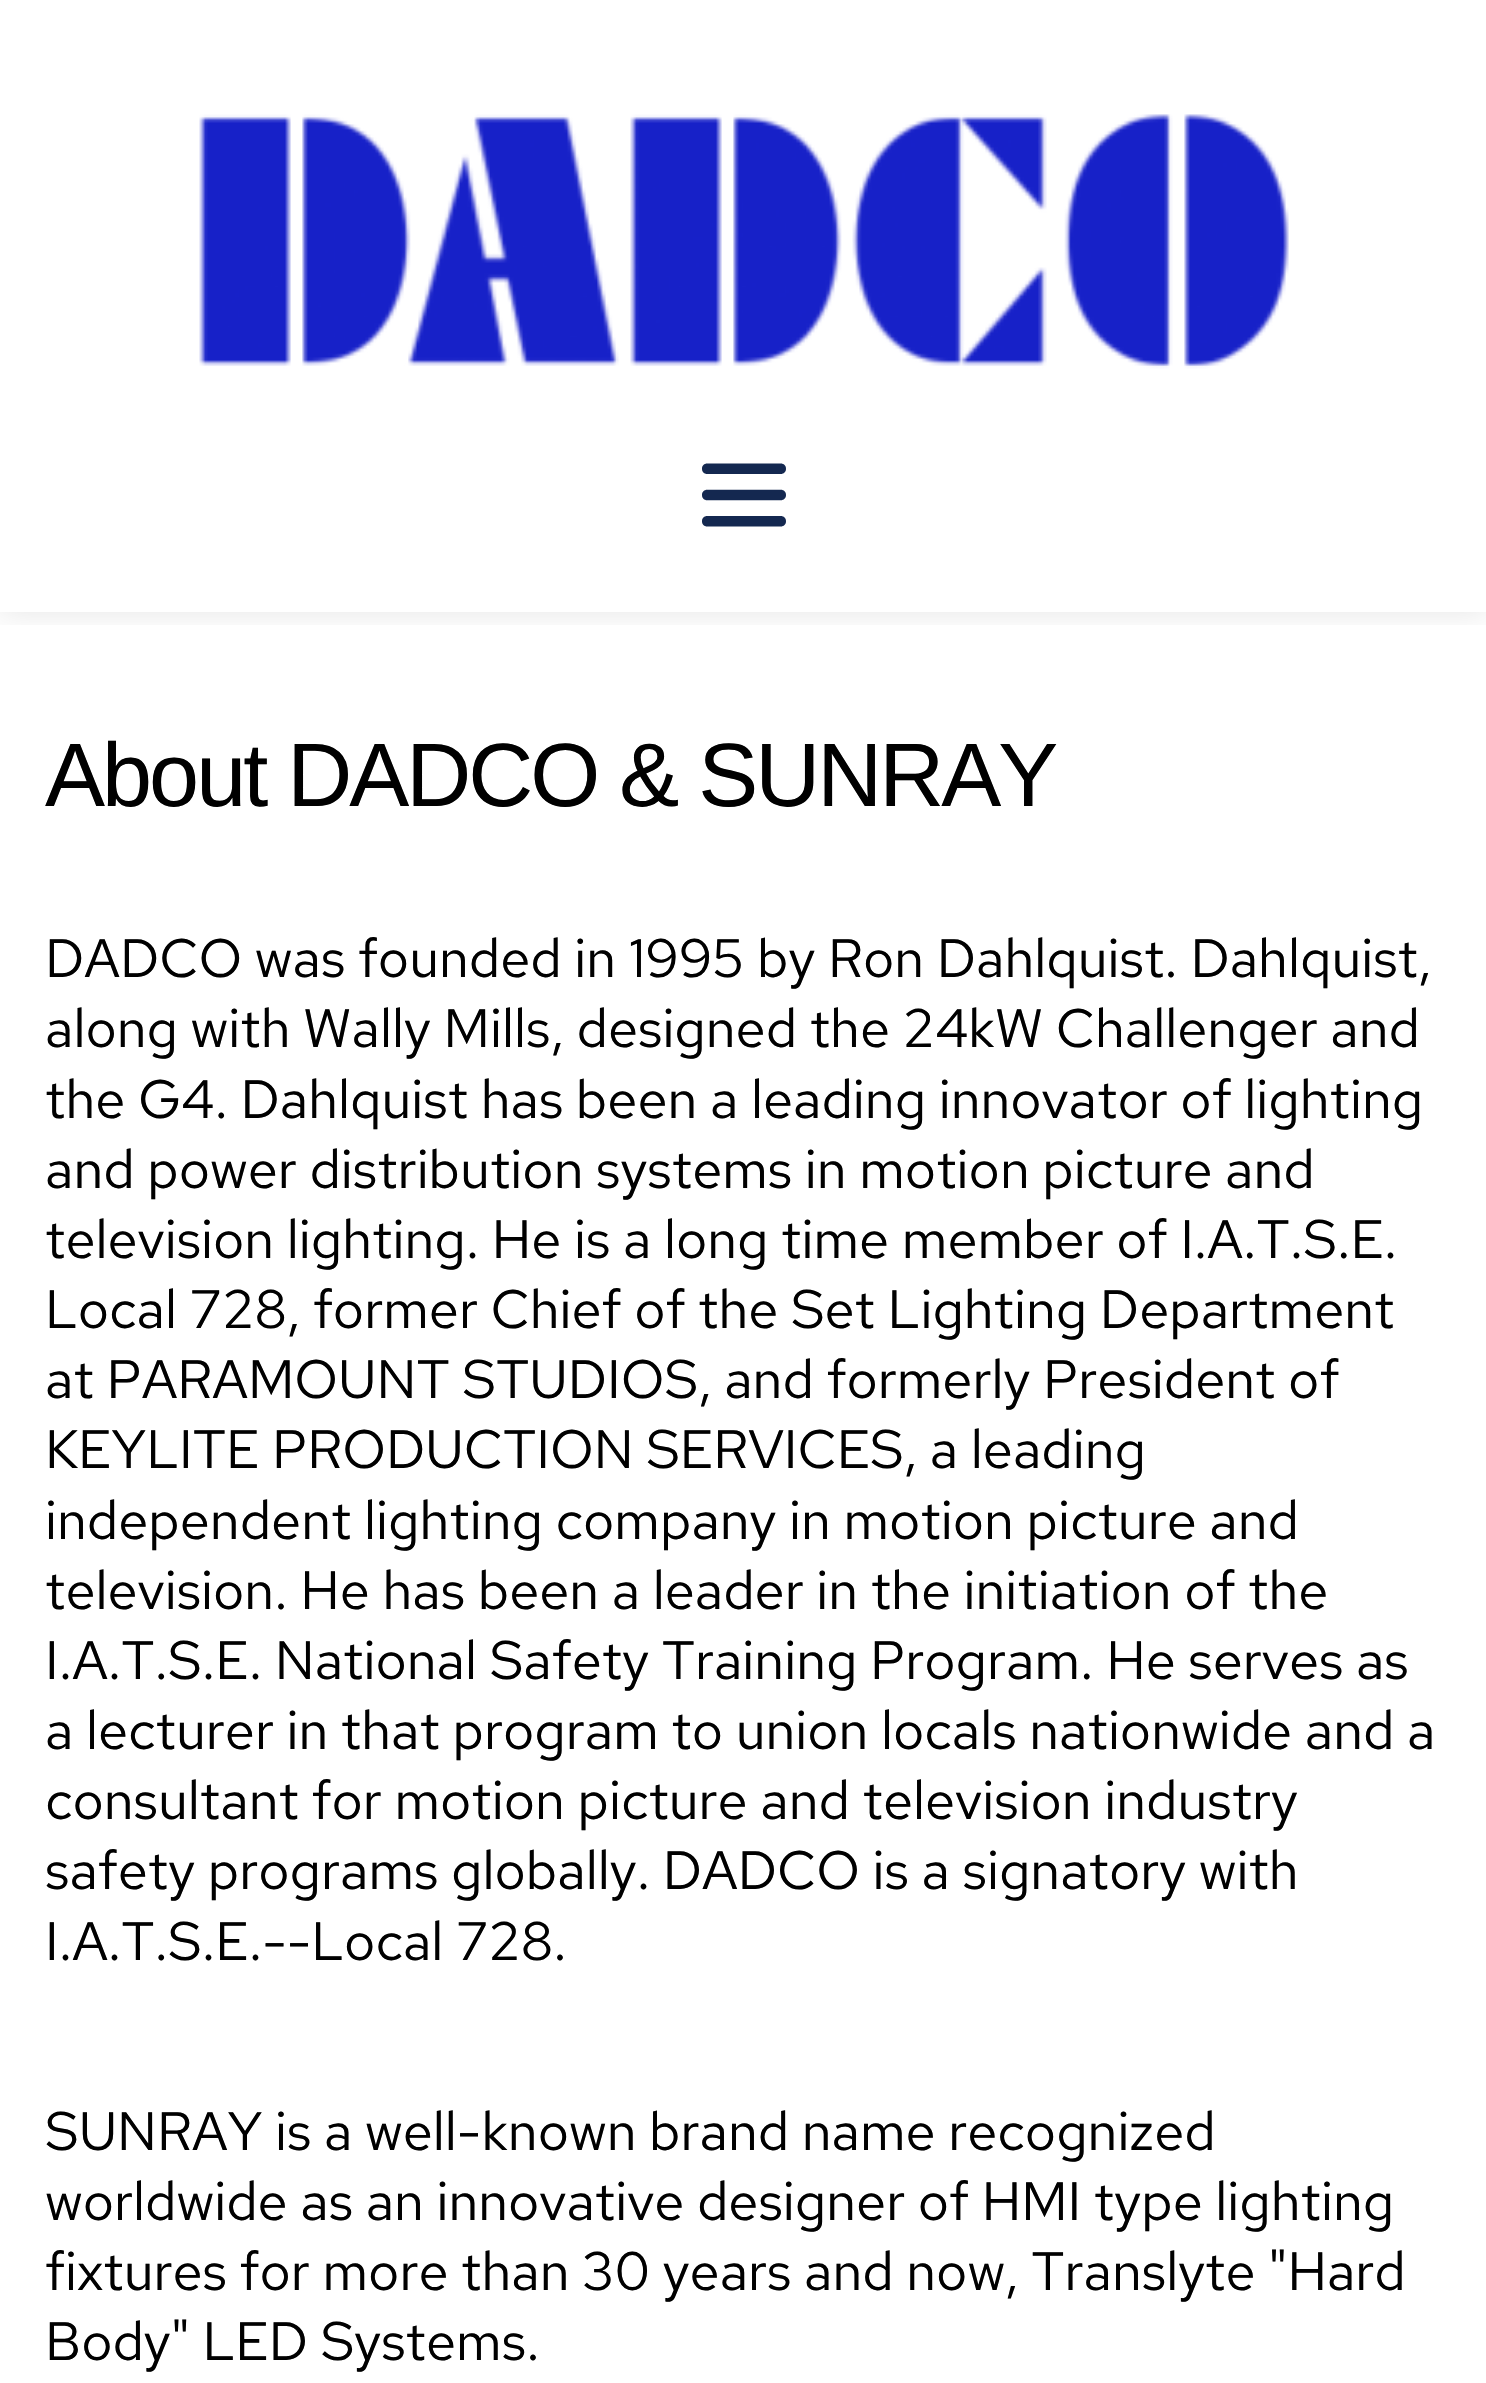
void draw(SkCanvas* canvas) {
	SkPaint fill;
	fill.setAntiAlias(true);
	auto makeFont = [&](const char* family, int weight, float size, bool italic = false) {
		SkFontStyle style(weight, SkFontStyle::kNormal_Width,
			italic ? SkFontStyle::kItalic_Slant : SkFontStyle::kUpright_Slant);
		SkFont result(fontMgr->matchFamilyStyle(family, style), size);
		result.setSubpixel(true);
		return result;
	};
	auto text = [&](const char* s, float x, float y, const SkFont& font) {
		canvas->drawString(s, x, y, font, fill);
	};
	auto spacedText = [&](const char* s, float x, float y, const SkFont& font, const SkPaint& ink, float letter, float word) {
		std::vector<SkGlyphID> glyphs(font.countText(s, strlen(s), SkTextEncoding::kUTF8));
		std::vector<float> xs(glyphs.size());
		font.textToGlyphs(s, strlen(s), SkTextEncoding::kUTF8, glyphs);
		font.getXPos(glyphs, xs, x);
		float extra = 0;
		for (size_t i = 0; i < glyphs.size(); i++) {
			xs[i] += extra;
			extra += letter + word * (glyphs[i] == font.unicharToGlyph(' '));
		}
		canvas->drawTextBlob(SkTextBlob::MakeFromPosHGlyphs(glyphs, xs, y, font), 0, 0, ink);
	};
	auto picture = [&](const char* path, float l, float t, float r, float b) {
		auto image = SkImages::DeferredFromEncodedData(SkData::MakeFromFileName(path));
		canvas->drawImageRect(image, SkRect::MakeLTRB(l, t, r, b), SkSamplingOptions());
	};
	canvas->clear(0xFFFFFFFF);
	canvas->save();
	canvas->clipRect(SkRect::MakeLTRB(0, 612, 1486, 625));
	fill.setColor(0x1A000000);
	fill.setMaskFilter(SkMaskFilter::MakeBlur(kNormal_SkBlurStyle, 15));
	canvas->drawRect(SkRect::MakeLTRB(0, 0, 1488, 612), fill);
	fill.setMaskFilter(nullptr);
	canvas->restore();
	picture("image0.png", 199, 114, 1289, 369);
	picture("image1.png", 702, 463, 786, 527);
	auto font1 = makeFont("Liberation Sans", 400, 90);
	fill.setColor(0xFF000000);
	spacedText("About DADCO & SUNRAY", 45, 806, font1, fill, -3, 0);
	auto font2 = makeFont("Red Hat Text", 400, 54);
	text("DADCO was founded in 1995 by Ron Dahlquist. Dahlquist,", 45, 977, font2);
	text("along with Wally Mills, designed the 24kW Challenger and", 45, 1047, font2);
	text("the G4. Dahlquist has been a leading innovator of lighting", 45, 1118, font2);
	text("and power distribution systems in motion picture and", 45, 1188, font2);
	text("television lighting. He is a long time member of I.A.T.S.E.", 45, 1258, font2);
	text("Local 728, former Chief of the Set Lighting Department", 45, 1328, font2);
	text("at PARAMOUNT STUDIOS, and formerly President of", 45, 1398, font2);
	text("KEYLITE PRODUCTION SERVICES, a leading", 45, 1468, font2);
	text("independent lighting company in motion picture and", 45, 1539, font2);
	text("television. He has been a leader in the initiation of the", 45, 1609, font2);
	text("I.A.T.S.E. National Safety Training Program. He serves as", 45, 1679, font2);
	text("a lecturer in that program to union locals nationwide and a", 45, 1749, font2);
	text("consultant for motion picture and television industry", 45, 1819, font2);
	text("safety programs globally. DADCO is a signatory with", 45, 1889, font2);
	text("I.A.T.S.E.--Local 728.", 45, 1960, font2);
	text("SUNRAY is a well-known brand name recognized", 45, 2150, font2);
	text("worldwide as an innovative designer of HMI type lighting", 45, 2220, font2);
	text("fixtures for more than 30 years and now, Translyte \"Hard", 45, 2290, font2);
	text("Body\" LED Systems.", 45, 2360, font2);
}
